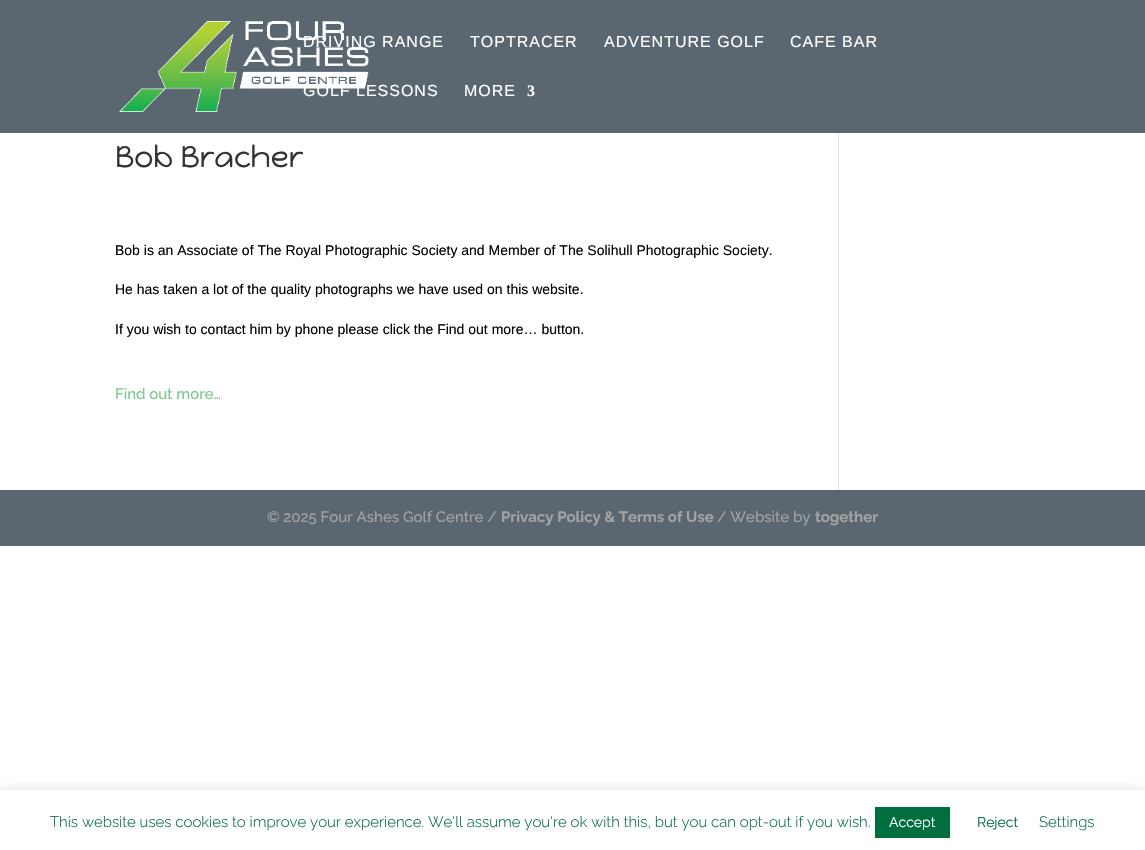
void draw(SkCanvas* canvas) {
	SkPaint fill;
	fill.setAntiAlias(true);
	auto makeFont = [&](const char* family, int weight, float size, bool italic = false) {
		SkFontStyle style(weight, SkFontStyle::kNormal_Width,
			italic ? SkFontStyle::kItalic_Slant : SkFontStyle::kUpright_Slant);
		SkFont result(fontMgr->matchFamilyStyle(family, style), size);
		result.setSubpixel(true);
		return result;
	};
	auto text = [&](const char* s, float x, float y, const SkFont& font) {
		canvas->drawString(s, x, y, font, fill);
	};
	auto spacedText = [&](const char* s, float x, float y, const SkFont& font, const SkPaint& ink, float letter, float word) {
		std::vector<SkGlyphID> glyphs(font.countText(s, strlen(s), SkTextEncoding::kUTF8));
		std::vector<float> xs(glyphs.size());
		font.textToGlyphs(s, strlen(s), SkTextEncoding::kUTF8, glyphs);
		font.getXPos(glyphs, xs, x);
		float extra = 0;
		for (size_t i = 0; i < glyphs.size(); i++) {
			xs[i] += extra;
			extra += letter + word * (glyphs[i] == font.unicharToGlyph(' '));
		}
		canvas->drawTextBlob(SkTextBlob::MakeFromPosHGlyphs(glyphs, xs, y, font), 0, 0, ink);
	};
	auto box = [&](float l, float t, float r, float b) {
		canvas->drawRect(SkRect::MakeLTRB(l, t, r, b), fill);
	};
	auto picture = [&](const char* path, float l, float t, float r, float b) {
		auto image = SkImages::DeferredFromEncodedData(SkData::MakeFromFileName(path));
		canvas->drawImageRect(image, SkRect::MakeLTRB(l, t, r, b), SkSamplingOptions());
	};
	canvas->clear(0xFFFFFFFF);
	fill.setColor(0xFF5B6770);
	box(0, 0, 1145, 133);
	picture("image0.png", 119, 21, 369, 112);
	fill.setColor(0xFFE2E2E2);
	box(838, 133, 839, 490);
	fill.setColor(0xFF5B6770);
	box(0, 490, 1145, 546);
	canvas->save();
	canvas->clipRect(SkRect::MakeLTRB(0, 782, 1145, 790));
	fill.setColor(0x4DACABAB);
	fill.setMaskFilter(SkMaskFilter::MakeBlur(kNormal_SkBlurStyle, 5));
	canvas->drawRect(SkRect::MakeLTRB(0, 789, 1145, 849), fill);
	fill.setMaskFilter(nullptr);
	canvas->restore();
	fill.setColor(0xFF006E3D);
	box(875, 807, 950, 838);
	auto font1 = makeFont("Liberation Sans", 400, 16);
	fill.setColor(0xFFFFFFFF);
	spacedText("DRIVING RANGE", 303, 47, font1, fill, 1, 0);
	spacedText("TOPTRACER", 470, 47, font1, fill, 1, 0);
	spacedText("ADVENTURE GOLF", 604, 47, font1, fill, 1, 0);
	spacedText("CAFE BAR", 790, 47, font1, fill, 1, 0);
	spacedText("GOLF LESSONS", 303, 96, font1, fill, 1, 0);
	spacedText("MORE", 464, 96, font1, fill, 1, 0);
	auto font2 = makeFont("Liberation Serif", 700, 16);
	spacedText("3", 527, 96, font2, fill, 1, 0);
	auto font3 = makeFont("Happy Monkey", 400, 30);
	fill.setColor(0xFF333333);
	text("Bob Bracher", 115, 167, font3);
	auto font4 = makeFont("Liberation Sans", 400, 14);
	fill.setColor(0xFF000000);
	text("Bob is an Associate of The Royal Photographic Society and Member of The Solihull Photographic Society.", 115, 255, font4);
	text("He has taken a lot of the quality photographs we have used on this website.", 115, 294, font4);
	text("If you wish to contact him by phone please click the Find out more… button.", 115, 334, font4);
	auto font5 = makeFont("Raleway", 500, 15);
	fill.setColor(0xFF7CC68D);
	text("Find out more…", 115, 399, font5);
	fill.setColor(0xFFA3A3A3);
	text("© 2025 Four Ashes Golf Centre /", 267, 522, font5);
	auto font6 = makeFont("Raleway", 700, 15);
	text("Privacy Policy & Terms of Use", 501, 522, font6);
	text("/ Website by", 717, 522, font5);
	text("together", 815, 522, font6);
	auto font7 = makeFont("Raleway", 300, 15);
	fill.setColor(0xFF006E3D);
	text("This website uses cookies to improve your experience. We'll assume you're ok with this, but you can opt-out if you wish.", 50, 827, font7);
	auto font8 = makeFont("Raleway", 400, 14);
	fill.setColor(0xFFFFFFFF);
	text("Accept", 889, 827, font8);
	fill.setColor(0xFF006E3D);
	text("Reject", 977, 827, font8);
	text("Settings", 1039, 827, font7);
}
